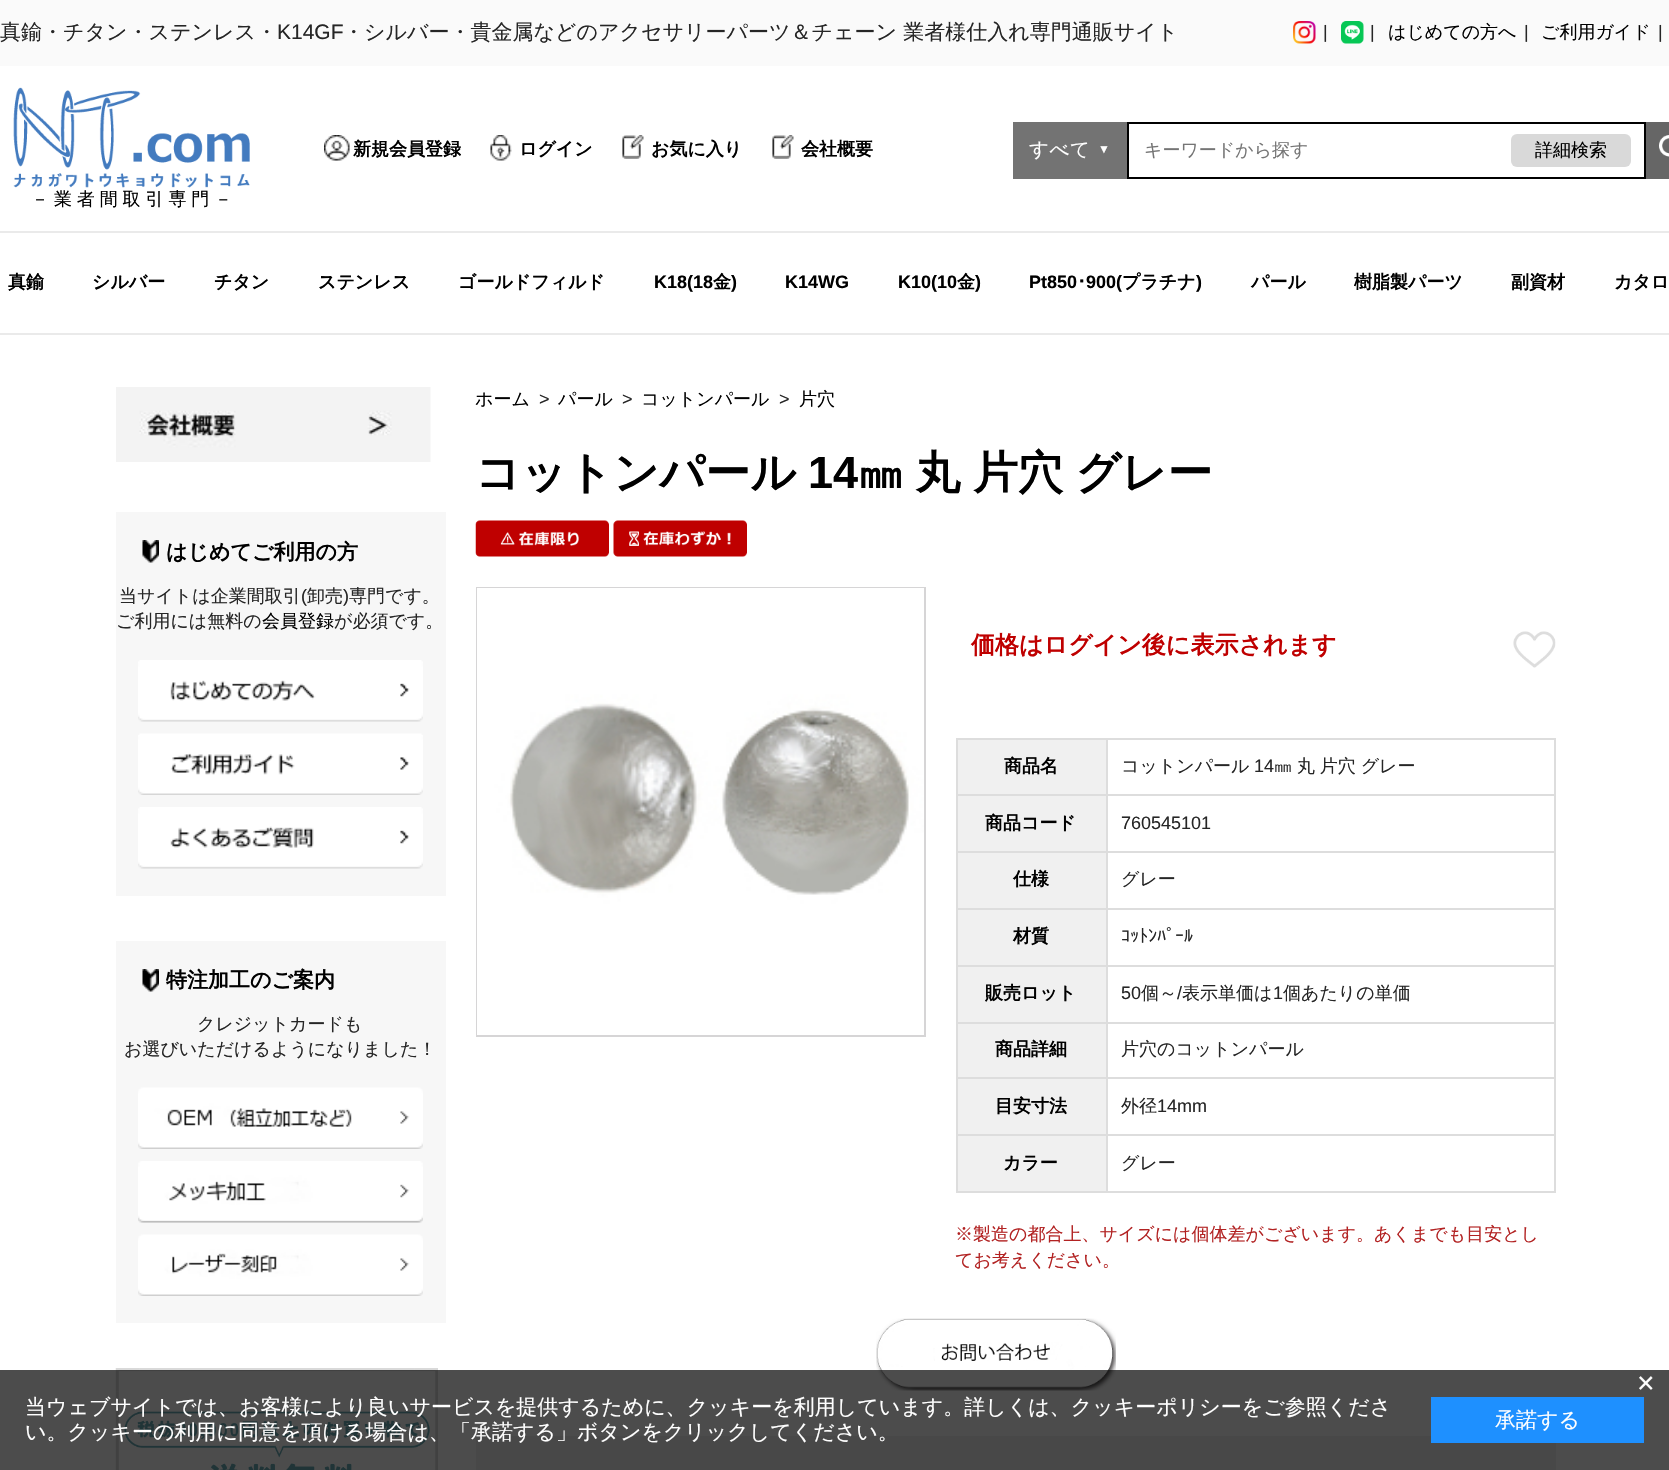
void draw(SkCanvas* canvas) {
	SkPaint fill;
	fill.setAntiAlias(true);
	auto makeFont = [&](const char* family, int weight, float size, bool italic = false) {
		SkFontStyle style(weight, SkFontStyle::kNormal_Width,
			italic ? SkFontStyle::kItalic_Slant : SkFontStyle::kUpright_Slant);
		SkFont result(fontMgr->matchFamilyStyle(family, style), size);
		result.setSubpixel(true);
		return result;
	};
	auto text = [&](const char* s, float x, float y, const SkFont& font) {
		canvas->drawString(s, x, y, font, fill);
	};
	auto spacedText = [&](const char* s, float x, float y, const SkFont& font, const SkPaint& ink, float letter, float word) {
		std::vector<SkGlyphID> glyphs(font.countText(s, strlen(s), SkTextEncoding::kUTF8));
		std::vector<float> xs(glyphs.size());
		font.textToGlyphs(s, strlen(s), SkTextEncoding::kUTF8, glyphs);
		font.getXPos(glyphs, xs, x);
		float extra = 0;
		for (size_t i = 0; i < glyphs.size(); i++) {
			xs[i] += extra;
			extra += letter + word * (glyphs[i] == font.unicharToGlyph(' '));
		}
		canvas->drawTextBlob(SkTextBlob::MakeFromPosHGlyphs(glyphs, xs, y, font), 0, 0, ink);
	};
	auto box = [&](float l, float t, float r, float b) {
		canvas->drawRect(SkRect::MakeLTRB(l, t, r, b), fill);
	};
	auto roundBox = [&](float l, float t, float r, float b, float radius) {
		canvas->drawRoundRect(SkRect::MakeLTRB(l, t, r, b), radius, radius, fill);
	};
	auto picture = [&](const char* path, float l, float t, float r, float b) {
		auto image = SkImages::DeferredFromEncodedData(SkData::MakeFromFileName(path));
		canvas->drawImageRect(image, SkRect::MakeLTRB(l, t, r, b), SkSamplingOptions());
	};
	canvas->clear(0xFFFFFFFF);
	fill.setColor(0xFFEAEAEA);
	box(0, 231, 1669, 233);
	fill.setColor(0xFFFAFAFA);
	box(0, 0, 1669, 66);
	picture("image0.png", 1293, 21, 1316, 44);
	picture("image1.png", 1341, 21, 1364, 44);
	picture("image2.png", 324, 135, 350, 161);
	picture("image3.png", 490, 135, 512, 161);
	picture("image4.png", 622, 135, 644, 159);
	picture("image5.png", 772, 135, 794, 159);
	fill.setColor(0xFF737373);
	box(1013, 122, 1127, 179);
	fill.setStyle(SkPaint::kStroke_Style);
	fill.setStrokeWidth(2);
	fill.setColor(0xFF000000);
	canvas->drawRect(SkRect::MakeLTRB(1128, 123, 1645, 178), fill);
	fill.setStyle(SkPaint::kFill_Style);
	fill.setColor(0xFFD9D9D9);
	roundBox(1511, 134, 1631, 167, 6);
	fill.setColor(0xFF666666);
	box(1646, 122, 1669, 179);
	picture("image6.png", 1659, 135, 1669, 157);
	picture("image7.png", 13, 87, 250, 188);
	fill.setColor(0xFFEAEAEA);
	box(0, 333, 1669, 335);
	picture("image8.png", 116, 387, 431, 462);
	fill.setColor(0xFFF7F7F7);
	box(116, 512, 446, 896);
	picture("image9.png", 142, 540, 159, 563);
	picture("image10.png", 138, 660, 423, 722);
	picture("image11.png", 138, 733, 423, 795);
	picture("image12.png", 138, 807, 423, 869);
	box(116, 941, 446, 1323);
	picture("image9.png", 142, 969, 159, 992);
	picture("image13.png", 138, 1087, 423, 1149);
	picture("image14.png", 138, 1161, 423, 1223);
	picture("image15.png", 138, 1234, 423, 1296);
	picture("image16.png", 115, 1368, 438, 1470);
	picture("image17.png", 475, 520, 609, 557);
	picture("image18.png", 613, 520, 747, 557);
	fill.setStyle(SkPaint::kStroke_Style);
	fill.setColor(0xFFD6D5D6);
	canvas->drawRect(SkRect::MakeLTRB(477, 588, 925, 1036), fill);
	picture("image19.png", 477, 588, 924, 1035);
	fill.setStyle(SkPaint::kFill_Style);
	fill.setColor(0xFFDDDDDD);
	box(956, 738, 1556, 740);
	box(956, 794, 1556, 796);
	box(956, 851, 1556, 853);
	box(956, 908, 1556, 910);
	box(956, 965, 1556, 967);
	box(956, 1022, 1556, 1024);
	box(956, 1077, 1556, 1079);
	box(956, 1134, 1556, 1136);
	box(1554, 1134, 1556, 1193);
	box(1554, 1077, 1556, 1136);
	box(1554, 1022, 1556, 1079);
	box(1554, 965, 1556, 1023);
	box(1554, 908, 1556, 966);
	box(1554, 851, 1556, 909);
	box(1554, 794, 1556, 852);
	box(1554, 738, 1556, 795);
	box(956, 1191, 1556, 1193);
	box(956, 1134, 958, 1193);
	box(956, 1077, 958, 1136);
	box(956, 1022, 958, 1079);
	box(956, 965, 958, 1023);
	box(956, 908, 958, 966);
	box(956, 851, 958, 909);
	box(956, 794, 958, 852);
	box(956, 738, 958, 795);
	fill.setColor(0xFFF0F0F0);
	box(958, 740, 1106, 794);
	box(958, 796, 1106, 851);
	box(958, 853, 1106, 908);
	box(958, 910, 1106, 965);
	box(958, 967, 1106, 1022);
	box(958, 1024, 1106, 1077);
	box(958, 1079, 1106, 1134);
	box(958, 1136, 1106, 1191);
	fill.setColor(0xFFDDDDDD);
	box(1106, 738, 1108, 1193);
	picture("image20.png", 1513, 631, 1556, 668);
	picture("image21.png", 876, 1318, 1116, 1391);
	fill.setColor(0xFFF0F0F0);
	box(476, 1436, 1556, 1470);
	fill.setColor(0xB3000000);
	box(0, 1370, 1669, 1470);
	fill.setColor(0xFF1E90FF);
	box(1431, 1397, 1644, 1443);
	auto font1 = makeFont("WenQuanYi Zen Hei", 500, 21);
	fill.setColor(0xFF262626);
	text("真鍮・チタン・ステンレス・", 0, 39, font1);
	auto font2 = makeFont("Liberation Sans", 400, 21);
	text("K14GF", 277, 39, font2);
	text("・シルバー・貴金属などのアクセサリーパーツ＆チェーン 業者様仕入れ専門通販サイト", 343, 39, font1);
	auto font3 = makeFont("Liberation Sans", 400, 18);
	text("|", 1323, 38, font3);
	text("|", 1370, 38, font3);
	auto font4 = makeFont("WenQuanYi Zen Hei", 500, 18);
	fill.setColor(0xFF000000);
	text("はじめての方へ", 1388, 38, font4);
	fill.setColor(0xFF262626);
	text("|", 1524, 38, font3);
	fill.setColor(0xFF000000);
	text("ご利用ガイド", 1541, 38, font4);
	fill.setColor(0xFF262626);
	text("|", 1658, 38, font3);
	auto font5 = makeFont("WenQuanYi Zen Hei", 700, 18);
	fill.setColor(0xFF000000);
	text("新規会員登録", 353, 155, font5);
	text("ログイン", 519, 155, font5);
	text("お気に入り", 651, 155, font5);
	text("会社概要", 801, 155, font5);
	auto font6 = makeFont("WenQuanYi Zen Hei", 500, 19.5f);
	fill.setColor(0xFFFFFFFF);
	spacedText("すべて", 1029, 156, font6, fill, 0.5f, 0);
	auto font7 = makeFont("Liberation Sans", 400, 12);
	spacedText("▼", 1098, 153, font7, fill, 0.5f, 0);
	fill.setColor(0xFF757575);
	text("キーワードから探す", 1144, 156, font4);
	fill.setColor(0xFF000000);
	text("詳細検索", 1535, 156, font4);
	spacedText("－ 業 者 間 取 引 専 門 －", 31, 205, font4, fill, 0, -0.5f);
	text("真鍮", 8, 288, font5);
	text("シルバー", 92, 288, font5);
	text("チタン", 214, 288, font5);
	text("ステンレス", 318, 288, font5);
	text("ゴールドフィルド", 458, 288, font5);
	auto font8 = makeFont("Liberation Sans", 700, 18);
	text("K18(18", 654, 288, font8);
	text("金", 713, 288, font5);
	text(")", 731, 288, font8);
	text("K14WG", 785, 288, font8);
	text("K10(10", 898, 288, font8);
	text("金", 957, 288, font5);
	text(")", 975, 288, font8);
	text("Pt850", 1029, 288, font8);
	auto font9 = makeFont("IPAPGothic", 700, 18);
	text("･", 1077, 288, font9);
	text("900(", 1086, 288, font8);
	text("プラチナ", 1122, 288, font5);
	text(")", 1196, 288, font8);
	text("パール", 1251, 288, font5);
	text("樹脂製パーツ", 1354, 288, font5);
	text("副資材", 1511, 288, font5);
	text("カタロ", 1614, 288, font5);
	auto font10 = makeFont("WenQuanYi Zen Hei", 700, 21);
	text("はじめてご利用の方", 166, 559, font10);
	fill.setColor(0xFF262626);
	text("当サイトは企業間取引", 119, 602, font4);
	text("(", 301, 602, font3);
	text("卸売", 307, 602, font4);
	text(")", 343, 602, font3);
	text("専門です。", 349, 602, font4);
	text("ご利用には無料の", 116, 627, font4);
	fill.setColor(0xFF000000);
	text("会員登録", 262, 627, font4);
	fill.setColor(0xFF262626);
	text("が必須です。", 334, 627, font4);
	fill.setColor(0xFF000000);
	text("特注加工のご案内", 166, 987, font10);
	fill.setColor(0xFF262626);
	text("クレジットカードも", 197, 1030, font4);
	text("お選びいただけるようになりました！", 124, 1055, font4);
	fill.setColor(0xFF000000);
	text("ホーム", 475, 405, font4);
	fill.setColor(0xFF262626);
	text(">", 539, 405, font3);
	fill.setColor(0xFF000000);
	text("パール", 558, 405, font4);
	fill.setColor(0xFF262626);
	text(">", 622, 405, font3);
	fill.setColor(0xFF000000);
	text("コットンパール", 641, 405, font4);
	fill.setColor(0xFF262626);
	text(">", 779, 405, font3);
	fill.setColor(0xFF000000);
	text("片穴", 799, 405, font4);
	auto font11 = makeFont("WenQuanYi Zen Hei", 700, 45);
	text("コットンパール", 475, 488, font11);
	auto font12 = makeFont("Liberation Sans", 700, 45);
	text("14", 808, 488, font12);
	spacedText("㎜ 丸 片穴 グレー", 858, 488, font11, fill, 0, -1);
	auto font13 = makeFont("WenQuanYi Zen Hei", 700, 24);
	fill.setColor(0xFFBF0000);
	text("価格はログイン後に表示されます", 971, 653, font13);
	fill.setColor(0xFF000000);
	text("商品名", 1004, 772, font5);
	fill.setColor(0xFF262626);
	text("コットンパール", 1121, 772, font4);
	text("14", 1254, 772, font3);
	spacedText("㎜ 丸 片穴 グレー", 1274, 772, font4, fill, 0, -0.5f);
	fill.setColor(0xFF000000);
	text("商品コード", 985, 829, font5);
	fill.setColor(0xFF262626);
	text("760545101", 1121, 829, font3);
	fill.setColor(0xFF000000);
	text("仕様", 1013, 885, font5);
	fill.setColor(0xFF262626);
	text("グレー", 1121, 885, font4);
	fill.setColor(0xFF000000);
	text("材質", 1013, 942, font5);
	auto font14 = makeFont("IPAPGothic", 400, 18);
	fill.setColor(0xFF262626);
	text("ｺｯﾄﾝﾊﾟｰﾙ", 1121, 942, font14);
	fill.setColor(0xFF000000);
	text("販売ロット", 985, 999, font5);
	fill.setColor(0xFF262626);
	text("50", 1121, 999, font3);
	text("個～", 1141, 999, font4);
	text("/", 1177, 999, font3);
	text("表示単価は", 1182, 999, font4);
	text("1", 1273, 999, font3);
	text("個あたりの単価", 1283, 999, font4);
	fill.setColor(0xFF000000);
	text("商品詳細", 995, 1055, font5);
	fill.setColor(0xFF262626);
	text("片穴のコットンパール", 1121, 1055, font4);
	fill.setColor(0xFF000000);
	text("目安寸法", 995, 1112, font5);
	fill.setColor(0xFF262626);
	text("外径", 1121, 1112, font4);
	text("14mm", 1157, 1112, font3);
	fill.setColor(0xFF000000);
	text("カラー", 1003, 1169, font5);
	fill.setColor(0xFF262626);
	text("グレー", 1121, 1169, font4);
	fill.setColor(0xFFB22222);
	text("※製造の都合上、サイズには個体差がございます。あくまでも目安とし", 955, 1240, font4);
	text("てお考えください。", 955, 1266, font4);
	auto font15 = makeFont("Liberation Sans", 400, 30);
	fill.setColor(0xFFFFFFFF);
	text("×", 1637, 1393, font15);
	text("当ウェブサイトでは、お客様により良いサービスを提供するために、クッキーを利用しています。詳しくは、クッキーポリシーをご参照くださ", 25, 1414, font1);
	text("い。クッキーの利用に同意を頂ける場合は、「承諾する」ボタンをクリックしてください。", 25, 1439, font1);
	text("承諾する", 1495, 1427, font1);
}
